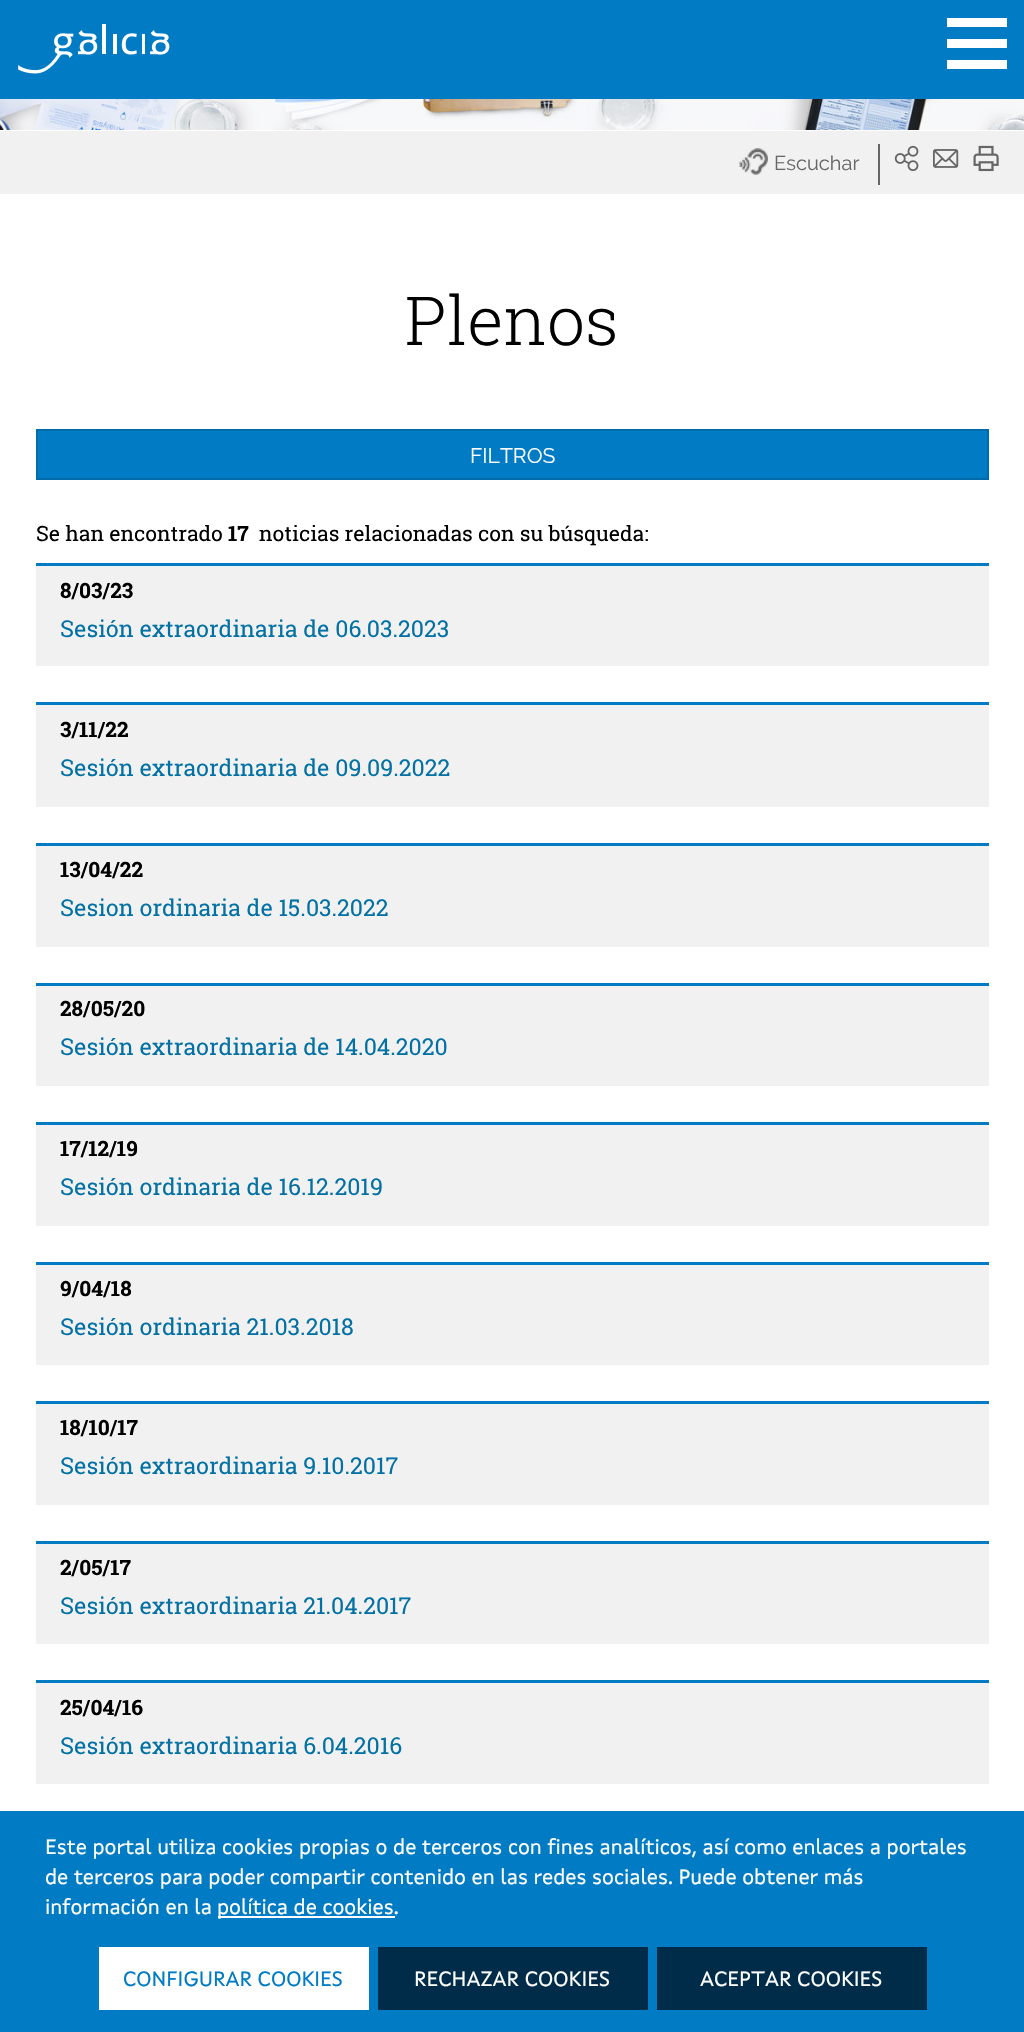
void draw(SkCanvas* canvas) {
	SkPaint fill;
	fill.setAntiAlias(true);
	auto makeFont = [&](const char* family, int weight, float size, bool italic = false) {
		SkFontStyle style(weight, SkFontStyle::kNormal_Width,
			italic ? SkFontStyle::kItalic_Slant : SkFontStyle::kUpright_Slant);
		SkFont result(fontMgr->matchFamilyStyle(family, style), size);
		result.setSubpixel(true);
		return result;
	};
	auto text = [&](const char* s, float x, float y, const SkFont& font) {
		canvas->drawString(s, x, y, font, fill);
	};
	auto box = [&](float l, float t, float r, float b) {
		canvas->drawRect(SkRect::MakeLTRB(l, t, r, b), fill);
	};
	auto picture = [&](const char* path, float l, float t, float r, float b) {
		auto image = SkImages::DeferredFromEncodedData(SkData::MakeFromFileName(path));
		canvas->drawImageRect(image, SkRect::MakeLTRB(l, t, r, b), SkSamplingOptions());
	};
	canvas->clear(0xFFFFFFFF);
	fill.setColor(0xFF007BC4);
	box(0, 0, 1024, 99);
	picture("image0.png", 18, 24, 170, 74);
	fill.setColor(0xFFFFFFFF);
	box(947, 18, 1007, 27);
	box(947, 39, 1007, 48);
	box(947, 60, 1007, 69);
	picture("image1.png", 0, 99, 1024, 130);
	fill.setColor(0xFFF1F1F1);
	box(0, 131, 1024, 194);
	fill.setColor(0xFF666666);
	box(878, 144, 880, 185);
	picture("image2.png", 739, 148, 768, 175);
	picture("image3.png", 894, 145, 919, 171);
	picture("image4.png", 933, 149, 959, 168);
	picture("image5.png", 973, 145, 999, 172);
	fill.setColor(0xFF007BC4);
	canvas->drawRect(SkRect::MakeLTRB(37, 430, 988, 479), fill);
	fill.setStyle(SkPaint::kStroke_Style);
	fill.setStrokeWidth(2);
	fill.setColor(0xFF006BAB);
	canvas->drawRect(SkRect::MakeLTRB(37, 430, 988, 479), fill);
	fill.setStyle(SkPaint::kFill_Style);
	fill.setColor(0xFFF1F1F1);
	box(36, 566, 989, 666);
	fill.setColor(0xFF007BC4);
	box(36, 563, 989, 566);
	fill.setColor(0xFFF1F1F1);
	box(36, 705, 989, 807);
	fill.setColor(0xFF007BC4);
	box(36, 702, 989, 705);
	fill.setColor(0xFFF1F1F1);
	box(36, 846, 989, 947);
	fill.setColor(0xFF007BC4);
	box(36, 843, 989, 846);
	fill.setColor(0xFFF1F1F1);
	box(36, 986, 989, 1086);
	fill.setColor(0xFF007BC4);
	box(36, 983, 989, 986);
	fill.setColor(0xFFF1F1F1);
	box(36, 1125, 989, 1226);
	fill.setColor(0xFF007BC4);
	box(36, 1122, 989, 1125);
	fill.setColor(0xFFF1F1F1);
	box(36, 1265, 989, 1365);
	fill.setColor(0xFF007BC4);
	box(36, 1262, 989, 1265);
	fill.setColor(0xFFF1F1F1);
	box(36, 1404, 989, 1505);
	fill.setColor(0xFF007BC4);
	box(36, 1401, 989, 1404);
	fill.setColor(0xFFF1F1F1);
	box(36, 1544, 989, 1644);
	fill.setColor(0xFF007BC4);
	box(36, 1541, 989, 1544);
	fill.setColor(0xFFF1F1F1);
	box(36, 1683, 989, 1784);
	fill.setColor(0xFF007BC4);
	box(36, 1680, 989, 1683);
	box(0, 1811, 1024, 2032);
	fill.setColor(0xFFFFFFFF);
	box(218, 1916, 395, 1918);
	box(99, 1947, 369, 2010);
	fill.setColor(0xFF002B49);
	box(378, 1947, 648, 2010);
	box(657, 1947, 927, 2010);
	auto font1 = makeFont("Raleway", 400, 20);
	fill.setColor(0xFF666666);
	text("Escuchar", 774, 170, font1);
	auto font2 = makeFont("Roboto Slab", 300, 67.5f);
	fill.setColor(0xFF000000);
	text("Plenos", 405, 345, font2);
	auto font3 = makeFont("Raleway", 400, 21);
	fill.setColor(0xFFFFFFFF);
	text("FILTROS", 470, 463, font3);
	auto font4 = makeFont("Roboto Slab", 400, 21);
	fill.setColor(0xFF000000);
	text("Se han encontrado", 36, 541, font4);
	auto font5 = makeFont("Roboto Slab", 700, 21);
	text("17", 228, 541, font5);
	text("noticias relacionadas con su búsqueda:", 259, 541, font4);
	text("8/03/23", 60, 598, font5);
	auto font6 = makeFont("Roboto Slab", 400, 23.1f);
	fill.setColor(0xFF0471A4);
	text("Sesión extraordinaria de 06.03.2023", 60, 637, font6);
	fill.setColor(0xFF000000);
	text("3/11/22", 60, 737, font5);
	fill.setColor(0xFF0471A4);
	text("Sesión extraordinaria de 09.09.2022", 60, 776, font6);
	fill.setColor(0xFF000000);
	text("13/04/22", 60, 877, font5);
	fill.setColor(0xFF0471A4);
	text("Sesion ordinaria de 15.03.2022", 60, 916, font6);
	fill.setColor(0xFF000000);
	text("28/05/20", 60, 1016, font5);
	fill.setColor(0xFF0471A4);
	text("Sesión extraordinaria de 14.04.2020", 60, 1055, font6);
	fill.setColor(0xFF000000);
	text("17/12/19", 60, 1156, font5);
	fill.setColor(0xFF0471A4);
	text("Sesión ordinaria de 16.12.2019", 60, 1195, font6);
	fill.setColor(0xFF000000);
	text("9/04/18", 60, 1296, font5);
	fill.setColor(0xFF0471A4);
	text("Sesión ordinaria 21.03.2018", 60, 1335, font6);
	fill.setColor(0xFF000000);
	text("18/10/17", 60, 1435, font5);
	fill.setColor(0xFF0471A4);
	text("Sesión extraordinaria 9.10.2017", 60, 1474, font6);
	fill.setColor(0xFF000000);
	text("2/05/17", 60, 1575, font5);
	fill.setColor(0xFF0471A4);
	text("Sesión extraordinaria 21.04.2017", 60, 1614, font6);
	fill.setColor(0xFF000000);
	text("25/04/16", 60, 1715, font5);
	fill.setColor(0xFF0471A4);
	text("Sesión extraordinaria 6.04.2016", 60, 1754, font6);
	auto font7 = makeFont("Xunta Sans", 400, 21);
	fill.setColor(0xFFFFFFFF);
	text("Este portal utiliza cookies propias o de terceros con fines analíticos, así como enlaces a portales", 45, 1854, font7);
	text("de terceros para poder compartir contenido en las redes sociales. Puede obtener más", 45, 1884, font7);
	text("información en la", 45, 1914, font7);
	text("política de cookies.", 217, 1914, font7);
	fill.setColor(0xFF007BC4);
	text("CONFIGURAR COOKIES", 123, 1986, font7);
	fill.setColor(0xFFFFFFFF);
	text("RECHAZAR COOKIES", 414, 1986, font7);
	text("ACEPTAR COOKIES", 700, 1986, font7);
}
